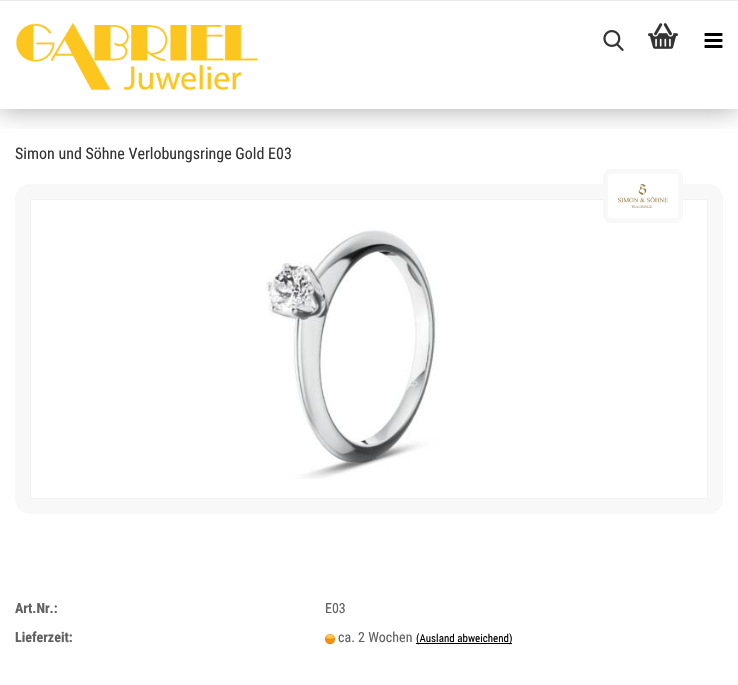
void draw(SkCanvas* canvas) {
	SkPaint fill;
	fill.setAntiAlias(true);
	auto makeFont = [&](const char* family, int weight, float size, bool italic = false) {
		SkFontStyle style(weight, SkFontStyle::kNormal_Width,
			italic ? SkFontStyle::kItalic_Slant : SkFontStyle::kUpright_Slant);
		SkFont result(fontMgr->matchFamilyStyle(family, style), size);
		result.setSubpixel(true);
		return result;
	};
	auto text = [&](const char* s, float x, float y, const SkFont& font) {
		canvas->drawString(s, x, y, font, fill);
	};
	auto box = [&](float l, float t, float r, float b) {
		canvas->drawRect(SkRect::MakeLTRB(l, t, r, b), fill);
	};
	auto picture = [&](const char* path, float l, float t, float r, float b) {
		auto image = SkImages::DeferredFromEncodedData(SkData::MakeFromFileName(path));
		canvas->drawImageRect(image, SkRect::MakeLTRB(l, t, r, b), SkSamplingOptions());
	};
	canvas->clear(0xFFFFFFFF);
	canvas->save();
	canvas->clipRect(SkRect::MakeLTRB(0, 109, 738, 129));
	fill.setColor(0x59000000);
	fill.setMaskFilter(SkMaskFilter::MakeBlur(kNormal_SkBlurStyle, 12.5f));
	canvas->drawRect(SkRect::MakeLTRB(0, 0, 738, 109), fill);
	fill.setMaskFilter(nullptr);
	canvas->restore();
	fill.setColor(0xFFEBEBEB);
	box(0, 0, 738, 1);
	picture("image0.png", 16, 23, 258, 91);
	picture("image1.png", 603, 30, 624, 51);
	picture("image2.png", 648, 23, 678, 49);
	picture("image3.png", 704, 33, 723, 48);
	fill.setStyle(SkPaint::kStroke_Style);
	fill.setStrokeWidth(15);
	fill.setColor(0xFFF8F8F8);
	canvas->drawRoundRect(SkRect::MakeLTRB(22.5f, 191.5f, 715.5f, 506.5f), 7.5f, 7.5f, fill);
	fill.setStrokeWidth(1);
	fill.setColor(0xFFF3F2F2);
	canvas->drawRect(SkRect::MakeLTRB(30.5f, 199.5f, 707.5f, 498.5f), fill);
	fill.setStyle(SkPaint::kFill_Style);
	fill.setColor(0xFFFFFFFF);
	canvas->drawRoundRect(SkRect::MakeLTRB(605.5f, 171.5f, 680.5f, 220.5f), 5.5f, 5.5f, fill);
	fill.setStyle(SkPaint::kStroke_Style);
	fill.setStrokeWidth(5);
	fill.setColor(0xFFF8F8F8);
	canvas->drawRoundRect(SkRect::MakeLTRB(605.5f, 171.5f, 680.5f, 220.5f), 5.5f, 5.5f, fill);
	picture("image4.png", 618, 184, 668, 208);
	picture("image5.png", 265, 228, 438, 479);
	picture("image6.png", 325, 634, 335, 644);
	fill.setStyle(SkPaint::kFill_Style);
	fill.setColor(0xFF000000);
	box(416, 643, 512, 644);
	auto font1 = makeFont("Roboto Condensed", 400, 16);
	fill.setColor(0xFF333333);
	text("Simon und Söhne Verlobungsringe Gold E03", 15, 159, font1);
	auto font2 = makeFont("Roboto Condensed", 700, 14);
	fill.setColor(0xFF616060);
	text("Art.Nr.:", 15, 613, font2);
	auto font3 = makeFont("Roboto Condensed", 400, 14);
	text("E03", 325, 613, font3);
	text("Lieferzeit:", 15, 642, font2);
	text("ca. 2 Wochen", 338, 642, font3);
	auto font4 = makeFont("Roboto Condensed", 400, 11);
	fill.setColor(0xFF000000);
	text("(Ausland abweichend)", 416, 642, font4);
}
